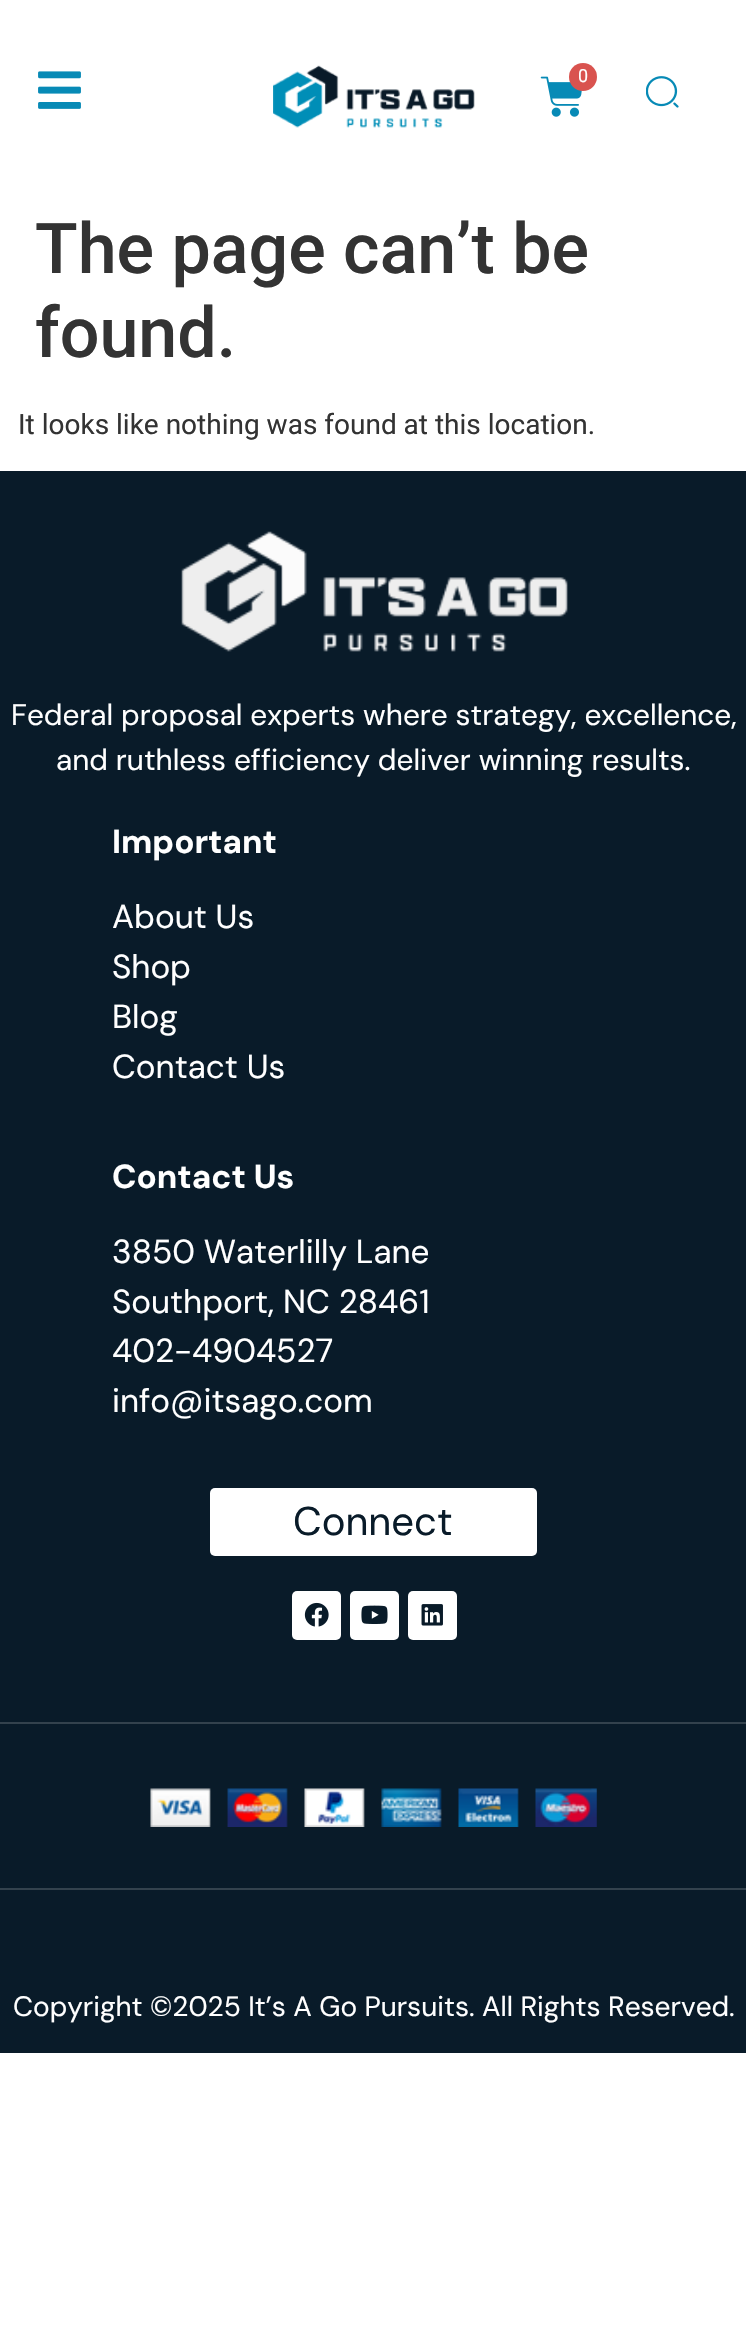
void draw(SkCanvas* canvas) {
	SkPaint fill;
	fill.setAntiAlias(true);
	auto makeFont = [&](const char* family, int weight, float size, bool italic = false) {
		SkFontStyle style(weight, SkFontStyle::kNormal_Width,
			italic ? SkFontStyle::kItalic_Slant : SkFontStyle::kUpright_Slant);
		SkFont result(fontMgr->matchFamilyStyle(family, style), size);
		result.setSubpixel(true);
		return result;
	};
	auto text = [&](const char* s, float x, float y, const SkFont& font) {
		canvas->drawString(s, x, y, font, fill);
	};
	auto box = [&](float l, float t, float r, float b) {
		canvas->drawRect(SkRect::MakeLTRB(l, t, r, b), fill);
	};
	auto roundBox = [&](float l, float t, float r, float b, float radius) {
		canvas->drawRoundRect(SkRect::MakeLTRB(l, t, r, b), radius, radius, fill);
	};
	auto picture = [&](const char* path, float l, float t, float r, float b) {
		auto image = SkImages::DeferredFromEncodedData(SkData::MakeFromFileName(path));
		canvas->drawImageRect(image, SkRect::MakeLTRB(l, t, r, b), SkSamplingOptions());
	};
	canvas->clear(0xFFFFFFFF);
	picture("image0.png", 38, 71, 81, 109);
	picture("image1.png", 273, 65, 475, 128);
	picture("image2.png", 540, 76, 582, 117);
	fill.setColor(0xFFD9534F);
	canvas->drawCircle(583, 77, 14, fill);
	picture("image3.png", 646, 76, 679, 108);
	fill.setColor(0xFF091B29);
	box(0, 471, 746, 2053);
	picture("image4.png", 181, 531, 568, 652);
	fill.setColor(0xFFFFFFFF);
	roundBox(210, 1488, 537, 1556, 5);
	roundBox(292, 1591, 341, 1640, 5);
	picture("image5.png", 304, 1602, 329, 1627);
	roundBox(350, 1591, 399, 1640, 5);
	picture("image6.png", 361, 1605, 388, 1624);
	roundBox(408, 1591, 457, 1640, 5);
	picture("image7.png", 421, 1604, 443, 1626);
	fill.setColor(0xFF33424D);
	box(0, 1722, 746, 1724);
	picture("image8.png", 150, 1788, 597, 1827);
	box(0, 1888, 746, 1890);
	auto font1 = makeFont("Roboto", 400, 18);
	fill.setColor(0xFFFFFFFF);
	text("0", 578, 82, font1);
	auto font2 = makeFont("Roboto", 500, 70);
	fill.setColor(0xFF333333);
	text("The page can’t be", 35, 273, font2);
	text("found.", 35, 357, font2);
	auto font3 = makeFont("Roboto", 400, 28);
	text("It looks like nothing was found at this location.", 18, 434, font3);
	auto font4 = makeFont("DM Sans", 400, 29.75f);
	fill.setColor(0xFFFFFFFF);
	text("Federal proposal experts where strategy, excellence,", 11, 725, font4);
	text("and ruthless efficiency deliver winning results.", 56, 770, font4);
	auto font5 = makeFont("DM Sans", 700, 33.25f);
	text("Important", 112, 853, font5);
	auto font6 = makeFont("DM Sans", 400, 33.25f);
	text("About Us", 112, 928, font6);
	text("Shop", 112, 978, font6);
	text("Blog", 112, 1028, font6);
	text("Contact Us", 112, 1078, font6);
	text("Contact Us", 112, 1188, font5);
	text("3850 Waterlilly Lane", 112, 1263, font6);
	text("Southport, NC 28461", 112, 1313, font6);
	text("402-4904527", 112, 1362, font6);
	text("info@itsago.com", 112, 1412, font6);
	auto font7 = makeFont("DM Sans", 400, 40);
	fill.setColor(0xFF091B29);
	text("Connect", 293, 1535, font7);
	auto font8 = makeFont("DM Sans", 400, 28);
	fill.setColor(0xFFFFFFFF);
	text("Copyright ©2025 It’s A Go Pursuits. All Rights Reserved.", 13, 2016, font8);
}
